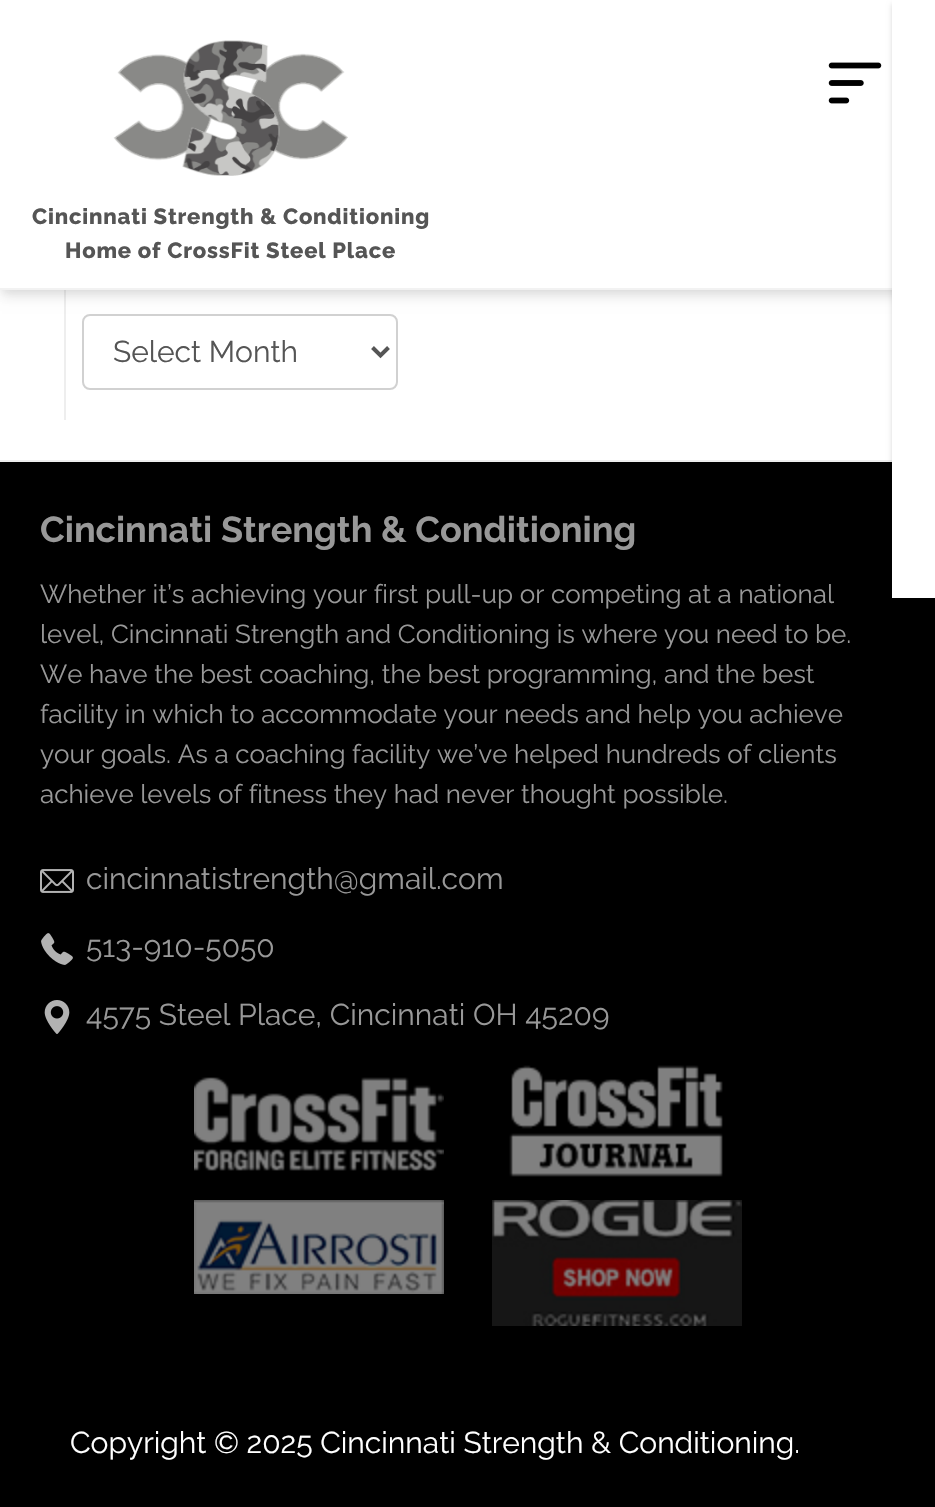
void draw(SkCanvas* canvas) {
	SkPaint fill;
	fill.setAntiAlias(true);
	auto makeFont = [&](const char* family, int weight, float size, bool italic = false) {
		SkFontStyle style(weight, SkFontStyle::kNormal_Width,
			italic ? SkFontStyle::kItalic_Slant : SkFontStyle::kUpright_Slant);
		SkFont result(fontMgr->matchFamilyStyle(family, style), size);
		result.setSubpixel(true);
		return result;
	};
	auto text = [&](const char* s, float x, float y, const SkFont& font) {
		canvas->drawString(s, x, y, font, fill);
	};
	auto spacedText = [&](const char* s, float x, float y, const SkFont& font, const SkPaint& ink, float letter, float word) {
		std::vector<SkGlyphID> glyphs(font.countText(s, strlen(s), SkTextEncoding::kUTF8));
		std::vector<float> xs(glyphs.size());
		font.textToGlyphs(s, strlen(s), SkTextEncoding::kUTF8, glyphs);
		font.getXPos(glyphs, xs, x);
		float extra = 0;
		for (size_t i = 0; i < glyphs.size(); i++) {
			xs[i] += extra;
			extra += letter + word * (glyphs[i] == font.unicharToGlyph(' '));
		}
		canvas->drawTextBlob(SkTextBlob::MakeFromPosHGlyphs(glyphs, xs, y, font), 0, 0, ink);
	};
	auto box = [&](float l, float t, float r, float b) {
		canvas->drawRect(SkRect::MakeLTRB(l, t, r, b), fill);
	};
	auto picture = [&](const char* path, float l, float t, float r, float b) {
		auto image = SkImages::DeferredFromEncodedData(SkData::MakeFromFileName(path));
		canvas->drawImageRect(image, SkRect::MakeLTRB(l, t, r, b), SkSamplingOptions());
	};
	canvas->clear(0xFFFFFFFF);
	fill.setColor(0xFFEEEEEE);
	box(64, 290, 66, 420);
	fill.setColor(0x0F000000);
	fill.setMaskFilter(SkMaskFilter::MakeBlur(kNormal_SkBlurStyle, 4));
	canvas->drawRect(SkRect::MakeLTRB(2, 6, 934, 292), fill);
	fill.setMaskFilter(nullptr);
	fill.setStyle(SkPaint::kStroke_Style);
	fill.setStrokeWidth(2);
	fill.setColor(0xFFD1D1D1);
	canvas->drawRoundRect(SkRect::MakeLTRB(83, 315, 397, 389), 7, 7, fill);
	fill.setStyle(SkPaint::kFill_Style);
	fill.setColor(0x1A000000);
	fill.setMaskFilter(SkMaskFilter::MakeBlur(kNormal_SkBlurStyle, 6));
	canvas->drawRect(SkRect::MakeLTRB(2, 10, 934, 296), fill);
	fill.setMaskFilter(nullptr);
	fill.setColor(0xFFFFFFFF);
	box(0, 0, 892, 288);
	fill.setColor(0xFFF2F2F2);
	box(0, 288, 892, 290);
	picture("image0.png", 828, 62, 882, 104);
	fill.setColor(0xFF000000);
	box(0, 462, 935, 1507);
	fill.setColor(0xFFEEEEEE);
	box(0, 460, 892, 462);
	fill.setColor(0x26000000);
	fill.setMaskFilter(SkMaskFilter::MakeBlur(kNormal_SkBlurStyle, 2.5f));
	canvas->drawRect(SkRect::MakeLTRB(892, 4, 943, 602), fill);
	fill.setMaskFilter(nullptr);
	fill.setColor(0xFFFFFFFF);
	box(892, 0, 935, 598);
	picture("image1.png", 113, 40, 348, 176);
	fill.setStyle(SkPaint::kStroke_Style);
	fill.setStrokeWidth(4);
	fill.setColor(0xFF555555);
	canvas->drawPath(SkPathBuilder().moveTo(372.5f, 347.5f).lineTo(380.5f, 355.5f).lineTo(388.5f, 347.5f).detach(), fill);
	picture("image2.png", 40, 869, 74, 893);
	picture("image3.png", 41, 933, 73, 965);
	picture("image4.png", 44, 1000, 70, 1034);
	picture("image5.png", 194, 1077, 444, 1171);
	picture("image6.png", 509, 1065, 723, 1177);
	picture("image7.png", 194, 1200, 444, 1294);
	picture("image8.png", 492, 1200, 742, 1326);
	auto font1 = makeFont("Raleway", 800, 22);
	fill.setStyle(SkPaint::kFill_Style);
	spacedText("Cincinnati Strength & Conditioning", 32, 224, font1, fill, 0.8f, 0);
	spacedText("Home of CrossFit Steel Place", 65, 258, font1, fill, 0.8f, 0);
	auto font2 = makeFont("Raleway", 400, 30);
	text("Select Month", 113, 362, font2);
	auto font3 = makeFont("Raleway", 700, 36);
	fill.setColor(0xFF989898);
	text("Cincinnati Strength & Conditioning", 40, 542, font3);
	auto font4 = makeFont("Raleway", 400, 26);
	text("Whether it’s achieving your first pull-up or competing at a national", 40, 603, font4);
	text("level, Cincinnati Strength and Conditioning is where you need to be.", 40, 643, font4);
	text("We have the best coaching, the best programming, and the best", 40, 683, font4);
	text("facility in which to accommodate your needs and help you achieve", 40, 723, font4);
	text("your goals. As a coaching facility we’ve helped hundreds of clients", 40, 763, font4);
	text("achieve levels of fitness they had never thought possible.", 40, 803, font4);
	text("cincinnatistrength@gmail.com", 86, 889, font2);
	text("513-910-5050", 86, 957, font2);
	text("4575 Steel Place, Cincinnati OH 45209", 86, 1025, font2);
	fill.setColor(0xFFFFFFFF);
	text("Copyright © 2025 Cincinnati Strength & Conditioning.", 70, 1453, font2);
}
